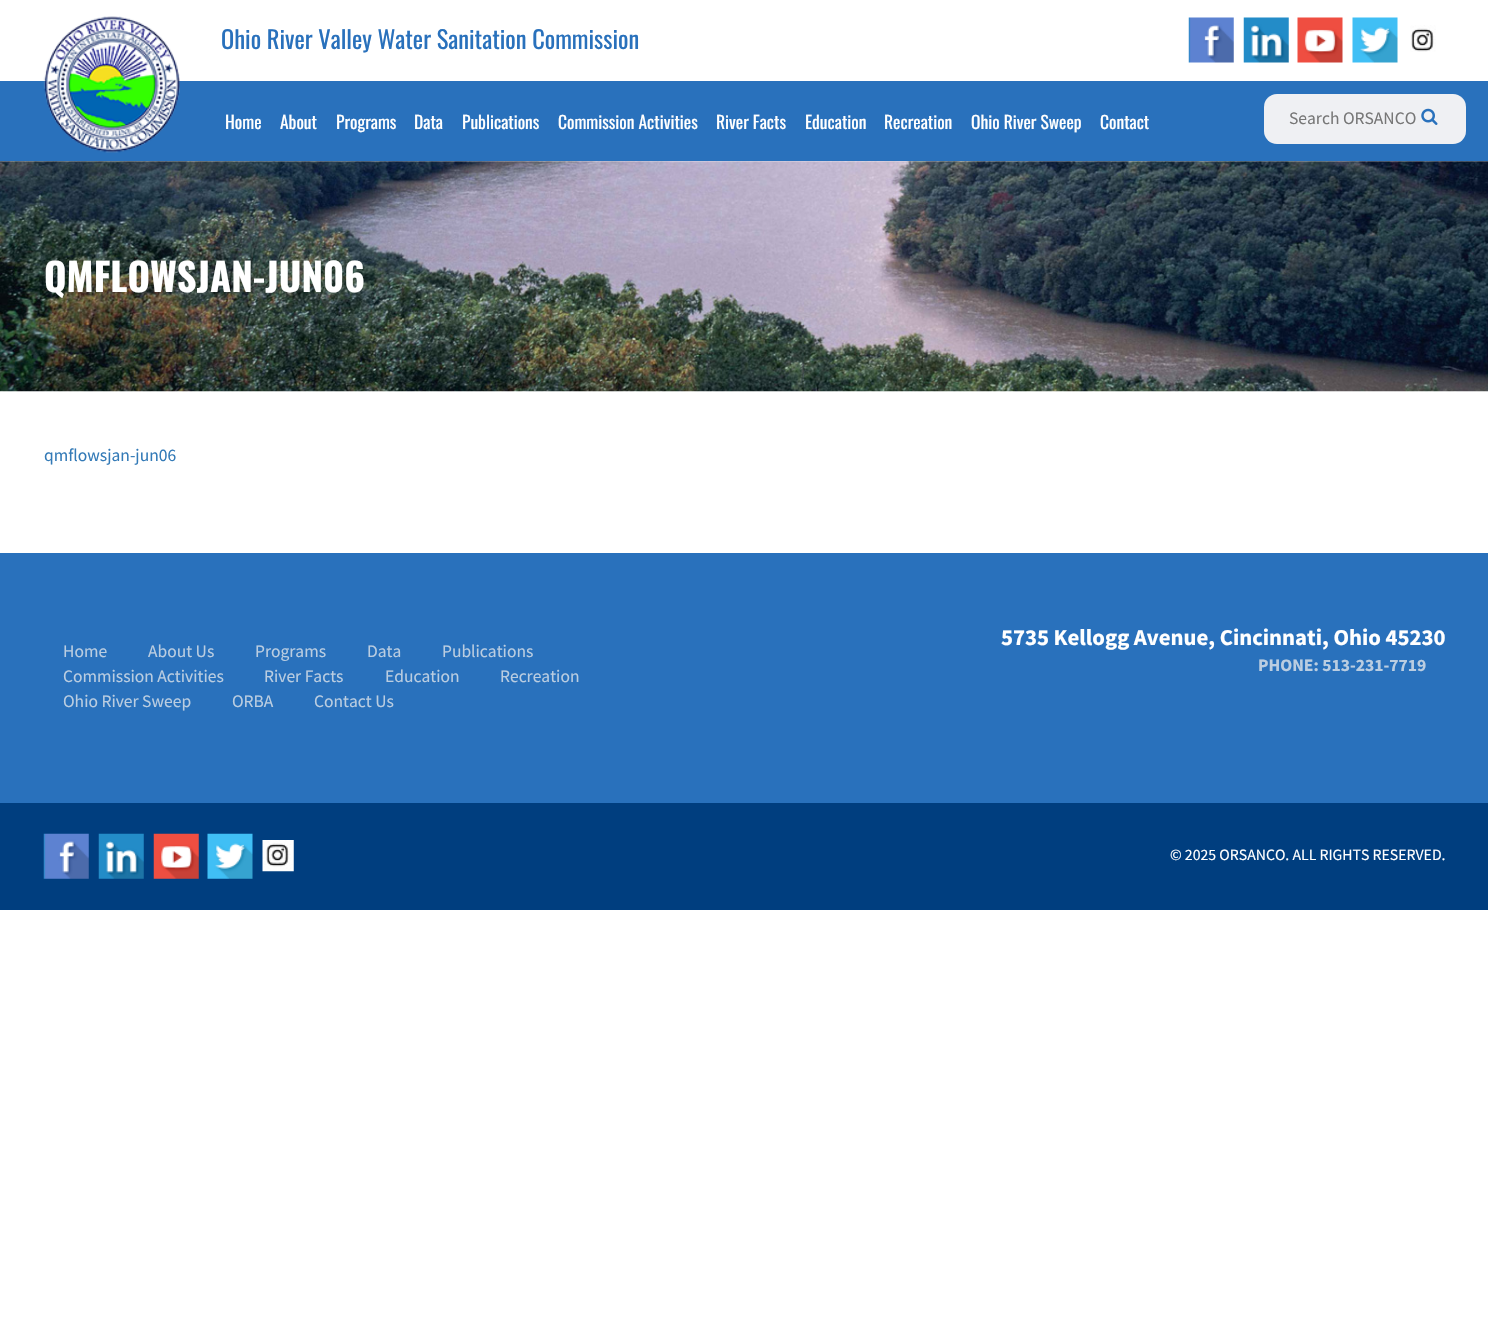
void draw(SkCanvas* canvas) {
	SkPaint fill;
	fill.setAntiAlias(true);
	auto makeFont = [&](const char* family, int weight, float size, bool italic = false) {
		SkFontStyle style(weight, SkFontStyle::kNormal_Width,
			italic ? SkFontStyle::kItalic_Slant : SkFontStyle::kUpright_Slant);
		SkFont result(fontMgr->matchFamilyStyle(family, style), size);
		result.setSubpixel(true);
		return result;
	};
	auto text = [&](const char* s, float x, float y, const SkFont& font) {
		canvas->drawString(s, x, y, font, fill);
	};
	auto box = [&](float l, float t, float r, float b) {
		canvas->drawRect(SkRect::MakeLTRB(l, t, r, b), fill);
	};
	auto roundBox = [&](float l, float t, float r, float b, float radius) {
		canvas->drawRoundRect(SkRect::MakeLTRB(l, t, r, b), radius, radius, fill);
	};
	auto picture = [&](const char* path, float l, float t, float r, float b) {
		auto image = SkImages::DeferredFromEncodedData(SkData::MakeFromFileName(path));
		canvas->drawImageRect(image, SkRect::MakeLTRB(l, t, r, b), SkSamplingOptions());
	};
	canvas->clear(0xFFFFFFFF);
	fill.setColor(0xFF2971BC);
	box(0, 81, 1488, 161);
	picture("image0.png", 43, 16, 180, 153);
	picture("image1.png", 1188, 17, 1234, 63);
	picture("image2.png", 1243, 17, 1289, 63);
	picture("image3.png", 1297, 17, 1343, 63);
	picture("image4.png", 1352, 17, 1398, 63);
	picture("image5.png", 1410, 25, 1436, 52);
	fill.setColor(0xFFEFF0F3);
	roundBox(1264, 94, 1466, 144, 13);
	picture("image6.png", 1421, 108, 1438, 125);
	picture("image7.png", 0, 161, 1488, 392);
	fill.setColor(0xFF2971BC);
	box(0, 553, 1488, 803);
	fill.setColor(0xFF003E7F);
	box(0, 803, 1488, 910);
	picture("image8.png", 43, 833, 89, 879);
	picture("image9.png", 98, 833, 144, 879);
	picture("image10.png", 153, 833, 199, 879);
	picture("image11.png", 207, 833, 253, 879);
	picture("image12.png", 262, 840, 294, 872);
	auto font1 = makeFont("Oswald", 400, 24.5f);
	fill.setColor(0xFF2971BC);
	text("Ohio River Valley Water Sanitation Commission", 221, 49, font1);
	auto font2 = makeFont("Oswald", 400, 17.5f);
	fill.setColor(0xFFFFFFFF);
	text("Home", 225, 129, font2);
	text("About", 280, 129, font2);
	text("Programs", 336, 129, font2);
	text("Data", 414, 129, font2);
	text("Publications", 462, 129, font2);
	text("Commission Activities", 558, 129, font2);
	text("River Facts", 716, 129, font2);
	text("Education", 805, 129, font2);
	text("Recreation", 884, 129, font2);
	text("Ohio River Sweep", 971, 129, font2);
	text("Contact", 1100, 129, font2);
	auto font3 = makeFont("Source Sans Pro", 400, 17.5f);
	fill.setColor(0xFF777777);
	text("Search ORSANCO", 1289, 124, font3);
	auto font4 = makeFont("Oswald", 700, 38.5f);
	fill.setColor(0xFFFFFFFF);
	text("QMFLOWSJAN-JUN06", 44, 292, font4);
	fill.setColor(0xFF337AB7);
	text("qmflowsjan-jun06", 44, 461, font3);
	fill.setColor(0xFFBACDE1);
	text("Home", 63, 657, font3);
	text("About Us", 148, 657, font3);
	text("Programs", 255, 657, font3);
	text("Data", 367, 657, font3);
	text("Publications", 442, 657, font3);
	text("Commission Activities", 63, 682, font3);
	text("River Facts", 264, 682, font3);
	text("Education", 385, 682, font3);
	text("Recreation", 500, 682, font3);
	text("Ohio River Sweep", 63, 707, font3);
	text("ORBA", 232, 707, font3);
	text("Contact Us", 314, 707, font3);
	auto font5 = makeFont("Source Sans Pro", 700, 22.75f);
	fill.setColor(0xFFFFFFFF);
	text("5735 Kellogg Avenue, Cincinnati, Ohio 45230", 1001, 645, font5);
	auto font6 = makeFont("Source Sans Pro", 700, 17.5f);
	fill.setColor(0xFFBACDE1);
	text("PHONE: 513-231-7719", 1258, 671, font6);
	auto font7 = makeFont("Source Sans Pro", 400, 15.75f);
	fill.setColor(0xFFFFFFFF);
	text("© 2025 ORSANCO. ALL RIGHTS RESERVED.", 1170, 860, font7);
}
